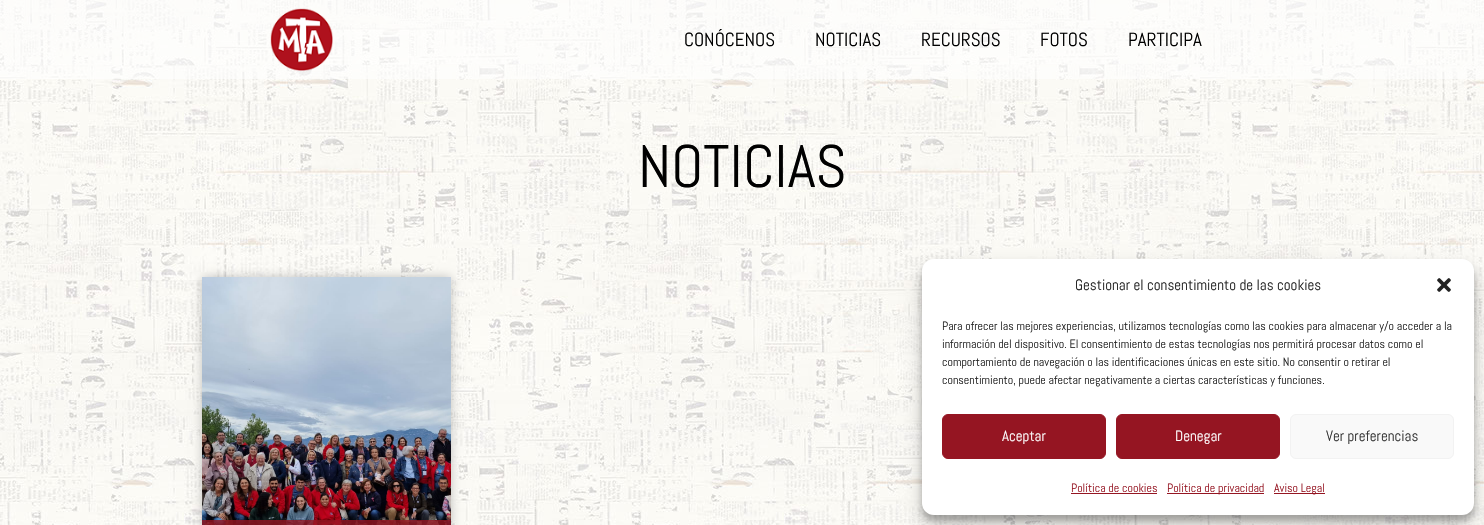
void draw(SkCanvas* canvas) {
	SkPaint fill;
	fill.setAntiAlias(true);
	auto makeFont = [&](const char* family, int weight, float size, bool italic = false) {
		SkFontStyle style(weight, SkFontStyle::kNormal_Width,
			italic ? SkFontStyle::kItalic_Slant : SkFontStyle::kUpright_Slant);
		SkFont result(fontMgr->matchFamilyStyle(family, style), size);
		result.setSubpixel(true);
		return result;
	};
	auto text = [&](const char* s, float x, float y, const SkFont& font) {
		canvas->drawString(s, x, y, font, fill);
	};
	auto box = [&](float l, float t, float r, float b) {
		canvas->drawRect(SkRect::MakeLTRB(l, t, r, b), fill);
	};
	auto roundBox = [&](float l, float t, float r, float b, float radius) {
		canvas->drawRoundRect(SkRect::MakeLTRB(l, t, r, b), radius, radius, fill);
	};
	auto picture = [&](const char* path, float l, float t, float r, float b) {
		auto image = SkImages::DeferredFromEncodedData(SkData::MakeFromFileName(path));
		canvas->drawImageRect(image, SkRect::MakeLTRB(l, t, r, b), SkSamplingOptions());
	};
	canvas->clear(0xFFFFFFFF);
	picture("image0.png", 0, 0, 1484, 525);
	fill.setColor(0x94FFFFFF);
	box(0, 0, 1484, 79);
	picture("image1.png", 270, 8, 333, 71);
	fill.setColor(0x3B000000);
	fill.setMaskFilter(SkMaskFilter::MakeBlur(kNormal_SkBlurStyle, 5));
	canvas->drawRect(SkRect::MakeLTRB(202, 277, 451, 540), fill);
	fill.setMaskFilter(nullptr);
	picture("image2.png", 202, 277, 451, 525);
	fill.setColor(0xCC951522);
	box(202, 520, 451, 525);
	fill.setColor(0x3B000000);
	fill.setMaskFilter(SkMaskFilter::MakeBlur(kNormal_SkBlurStyle, 3));
	canvas->drawRoundRect(SkRect::MakeLTRB(922, 265, 1474, 521), 12, 12, fill);
	fill.setMaskFilter(nullptr);
	fill.setColor(0x30000000);
	fill.setMaskFilter(SkMaskFilter::MakeBlur(kNormal_SkBlurStyle, 10));
	canvas->drawRoundRect(SkRect::MakeLTRB(922, 269, 1474, 525), 12, 12, fill);
	fill.setMaskFilter(nullptr);
	fill.setColor(0xFFFFFFFF);
	roundBox(922, 259, 1474, 515, 12);
	picture("image3.png", 1437, 278, 1451, 292);
	fill.setColor(0xFF951522);
	canvas->drawRoundRect(SkRect::MakeLTRB(942.5f, 414.5f, 1105.5f, 458.5f), 5.5f, 5.5f, fill);
	fill.setStyle(SkPaint::kStroke_Style);
	fill.setStrokeWidth(1);
	canvas->drawRoundRect(SkRect::MakeLTRB(942.5f, 414.5f, 1105.5f, 458.5f), 5.5f, 5.5f, fill);
	fill.setStyle(SkPaint::kFill_Style);
	canvas->drawRoundRect(SkRect::MakeLTRB(1116.5f, 414.5f, 1279.5f, 458.5f), 5.5f, 5.5f, fill);
	fill.setStyle(SkPaint::kStroke_Style);
	canvas->drawRoundRect(SkRect::MakeLTRB(1116.5f, 414.5f, 1279.5f, 458.5f), 5.5f, 5.5f, fill);
	fill.setStyle(SkPaint::kFill_Style);
	fill.setColor(0xFFF9F9F9);
	canvas->drawRoundRect(SkRect::MakeLTRB(1290.5f, 414.5f, 1453.5f, 458.5f), 5.5f, 5.5f, fill);
	fill.setStyle(SkPaint::kStroke_Style);
	fill.setColor(0xFFF2F2F2);
	canvas->drawRoundRect(SkRect::MakeLTRB(1290.5f, 414.5f, 1453.5f, 458.5f), 5.5f, 5.5f, fill);
	fill.setStyle(SkPaint::kFill_Style);
	fill.setColor(0xFF951522);
	box(1071, 493, 1157, 494);
	box(1167, 493, 1264, 494);
	box(1274, 493, 1325, 494);
	auto font1 = makeFont("Abel", 400, 19);
	fill.setColor(0xFF000000);
	text("CONÓCENOS", 684, 46, font1);
	text("NOTICIAS", 815, 46, font1);
	text("RECURSOS", 921, 46, font1);
	text("FOTOS", 1040, 46, font1);
	text("PARTICIPA", 1128, 46, font1);
	auto font2 = makeFont("Abel", 400, 60);
	text("NOTICIAS", 638, 187, font2);
	auto font3 = makeFont("Abel", 400, 15);
	fill.setColor(0xFF222222);
	text("Gestionar el consentimiento de las cookies", 1075, 290, font3);
	auto font4 = makeFont("Abel", 400, 12);
	text("Para ofrecer las mejores experiencias, utilizamos tecnologías como las cookies para almacenar y/o acceder a la", 942, 330, font4);
	text("información del dispositivo. El consentimiento de estas tecnologías nos permitirá procesar datos como el", 942, 348, font4);
	text("comportamiento de navegación o las identificaciones únicas en este sitio. No consentir o retirar el", 942, 366, font4);
	text("consentimiento, puede afectar negativamente a ciertas características y funciones.", 942, 384, font4);
	fill.setColor(0xFFFFFFFF);
	text("Aceptar", 1002, 441, font3);
	text("Denegar", 1175, 441, font3);
	fill.setColor(0xFF333333);
	text("Ver preferencias", 1326, 441, font3);
	fill.setColor(0xFF951522);
	text("Política de cookies", 1071, 492, font4);
	text("Política de privacidad", 1167, 492, font4);
	text("Aviso Legal", 1274, 492, font4);
}
